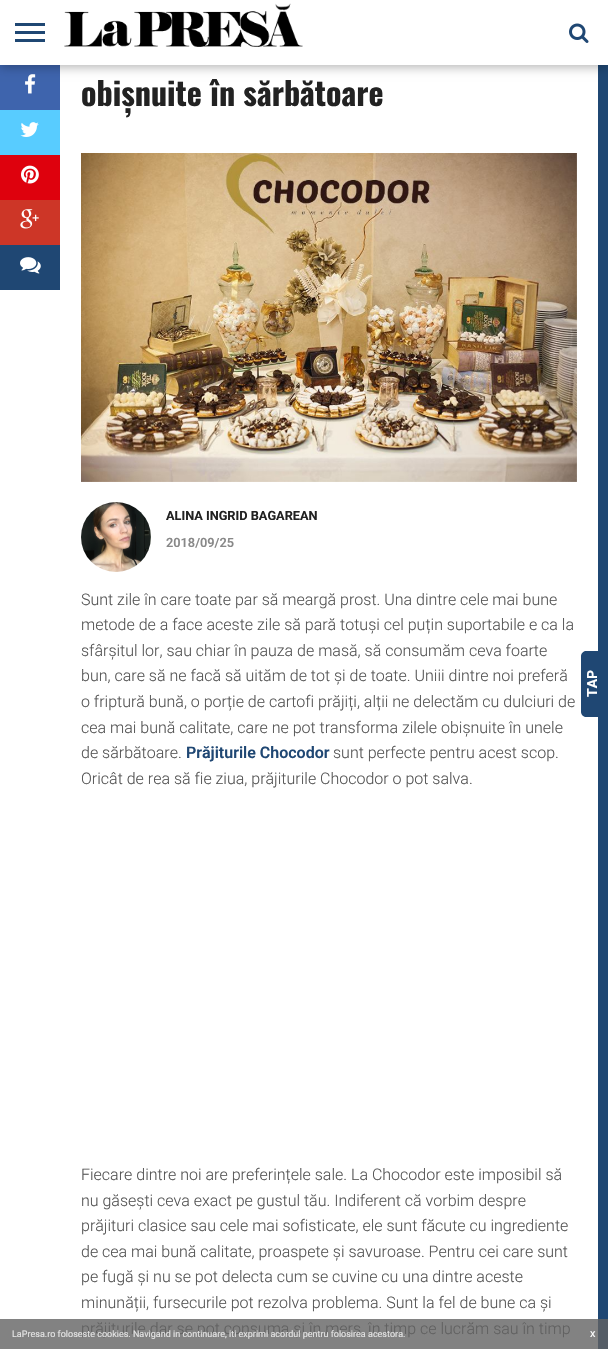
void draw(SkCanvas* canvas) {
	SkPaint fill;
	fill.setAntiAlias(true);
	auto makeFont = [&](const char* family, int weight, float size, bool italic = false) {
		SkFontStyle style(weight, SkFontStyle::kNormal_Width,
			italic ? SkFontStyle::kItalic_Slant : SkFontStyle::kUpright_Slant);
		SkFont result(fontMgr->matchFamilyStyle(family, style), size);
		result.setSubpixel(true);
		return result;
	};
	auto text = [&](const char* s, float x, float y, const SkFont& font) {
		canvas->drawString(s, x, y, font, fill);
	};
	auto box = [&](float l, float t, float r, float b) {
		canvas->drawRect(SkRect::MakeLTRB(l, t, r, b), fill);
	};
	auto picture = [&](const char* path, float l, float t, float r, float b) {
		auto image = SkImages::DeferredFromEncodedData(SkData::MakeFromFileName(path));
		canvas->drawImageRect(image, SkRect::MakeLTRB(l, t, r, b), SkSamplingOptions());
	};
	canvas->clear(0xFFFFFFFF);
	fill.setColor(0xFF828282);
	box(0, 1319, 598, 1349);
	fill.setColor(0xFF3E64AD);
	box(0, 65, 60, 110);
	picture("image2.png", 25, 74, 36, 94);
	fill.setColor(0xFF1F4773);
	box(598, 65, 608, 1319);
	fill.setColor(0x4D000000);
	fill.setMaskFilter(SkMaskFilter::MakeBlur(kNormal_SkBlurStyle, 5));
	canvas->drawRect(SkRect::MakeLTRB(0, 2, 608, 67), fill);
	fill.setMaskFilter(nullptr);
	fill.setColor(0xFFFFFFFF);
	box(0, 0, 608, 65);
	fill.setColor(0xFF1F4773);
	box(15, 23, 45, 26);
	box(15, 31, 45, 34);
	box(15, 39, 45, 42);
	picture("image0.png", 64, 3, 303, 47);
	picture("image1.png", 569, 23, 589, 43);
	fill.setColor(0xFF58CCFF);
	box(0, 110, 60, 155);
	picture("image3.png", 20, 122, 39, 137);
	fill.setColor(0xFFDE010D);
	box(0, 155, 60, 200);
	picture("image4.png", 21, 165, 39, 184);
	fill.setColor(0xFFCD3627);
	box(0, 200, 60, 245);
	picture("image5.png", 20, 209, 39, 229);
	fill.setColor(0xFF1F4773);
	box(0, 245, 60, 290);
	picture("image6.png", 20, 257, 41, 274);
	picture("image7.png", 81, 153, 577, 482);
	picture("image8.png", 81, 502, 151, 572);
	fill.setColor(0xFF555D66);
	box(598, 1319, 608, 1349);
	fill.setColor(0xFF1F4773);
	canvas->drawPath(SkPathBuilder().moveTo(581, 712).lineTo(581, 656).cubicTo(581, 653, 584, 651, 586, 651).lineTo(600, 651).cubicTo(603, 651, 605, 653, 605, 656).lineTo(605, 712).cubicTo(605, 715, 603, 717, 600, 717).lineTo(586, 717).cubicTo(584, 717, 581, 715, 581, 712).close().detach(), fill);
	auto font1 = makeFont("Oswald", 700, 32);
	fill.setColor(0xFF222222);
	text("obișnuite în sărbătoare", 81, 106, font1);
	auto font2 = makeFont("Roboto", 700, 12.75f);
	text("ALINA INGRID BAGAREAN", 166, 520, font2);
	auto font3 = makeFont("Roboto", 600, 12.75f);
	fill.setColor(0xFF888888);
	text("2018/09/25", 166, 547, font3);
	auto font4 = makeFont("Roboto", 300, 16);
	fill.setColor(0xFF555555);
	text("Sunt zile în care toate par să meargă prost. Una dintre cele mai bune", 81, 605, font4);
	text("metode de a face aceste zile să pară totuși cel puțin suportabile e ca la", 81, 630, font4);
	text("sfârșitul lor, sau chiar în pauza de masă, să consumăm ceva foarte", 81, 656, font4);
	text("bun, care să ne facă să uităm de tot și de toate. Uniii dintre noi preferă", 81, 681, font4);
	text("o friptură bună, o porție de cartofi prăjiți, alții ne delectăm cu dulciuri de", 81, 707, font4);
	text("cea mai bună calitate, care ne pot transforma zilele obișnuite în unele", 81, 733, font4);
	text("de sărbătoare.", 81, 758, font4);
	auto font5 = makeFont("Roboto", 600, 16);
	fill.setColor(0xFF1F4773);
	text("Prăjiturile Chocodor", 186, 758, font5);
	fill.setColor(0xFF555555);
	text("sunt perfecte pentru acest scop.", 333, 758, font4);
	text("Oricât de rea să fie ziua, prăjiturile Chocodor o pot salva.", 81, 784, font4);
	text("Fiecare dintre noi are preferințele sale. La Chocodor este imposibil să", 81, 1180, font4);
	text("nu găsești ceva exact pe gustul tău. Indiferent că vorbim despre", 81, 1206, font4);
	text("prăjituri clasice sau cele mai sofisticate, ele sunt făcute cu ingrediente", 81, 1231, font4);
	text("de cea mai bună calitate, proaspete și savuroase. Pentru cei care sunt", 81, 1257, font4);
	text("pe fugă și nu se pot delecta cum se cuvine cu una dintre aceste", 81, 1282, font4);
	text("minunății, fursecurile pot rezolva problema. Sunt la fel de bune ca și", 81, 1308, font4);
	fill.setColor(0xFF606060);
	text("prăjiturile dar se pot consuma și în mers, în timp ce lucrăm sau în timp", 81, 1334, font4);
	auto font6 = makeFont("Roboto", 700, 14);
	fill.setColor(0xFFFFFFFF);
	canvas->save();
	canvas->rotate(-90, 597, 697);
	text("TAP", 597, 697, font6);
	canvas->restore();
	auto font7 = makeFont("Roboto", 400, 9);
	fill.setColor(0xFFE5E5E5);
	text("LaPresa.ro foloseste cookies. Navigand in continuare, iti exprimi acordul pentru folosirea acestora.", 12, 1337, font7);
	auto font8 = makeFont("Roboto", 400, 11);
	fill.setColor(0xFFFFFFFF);
	text("x", 590, 1337, font8);
}
